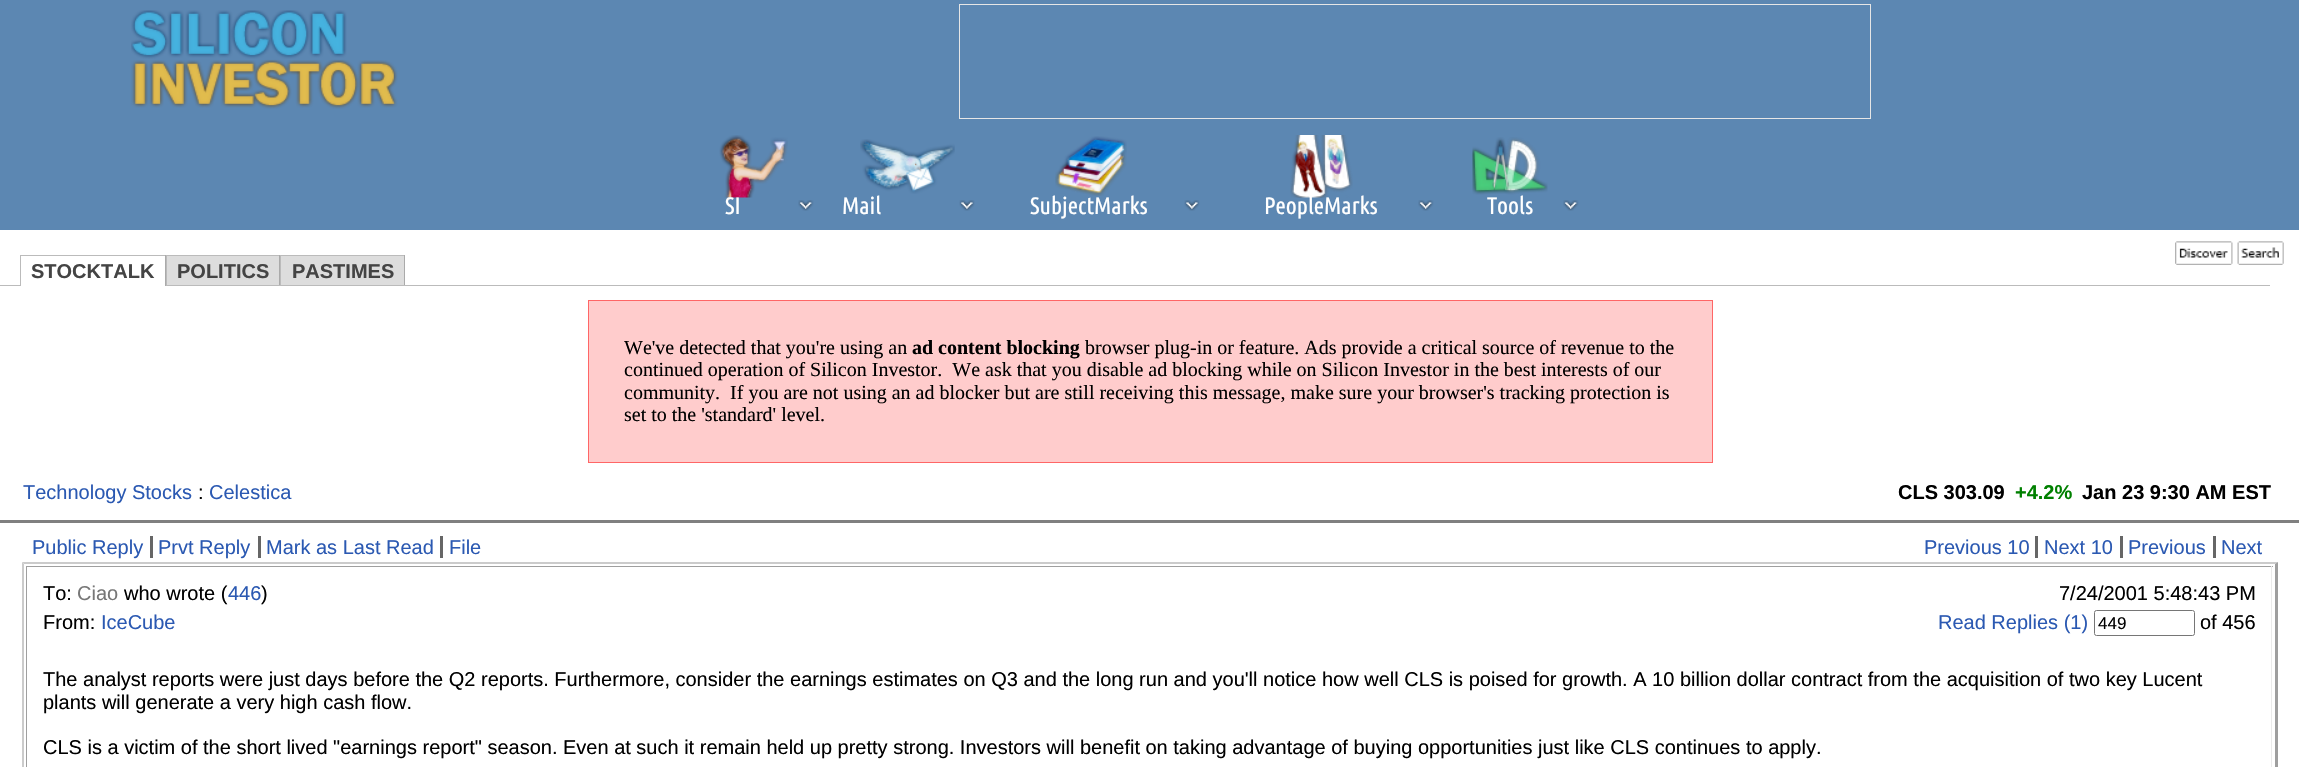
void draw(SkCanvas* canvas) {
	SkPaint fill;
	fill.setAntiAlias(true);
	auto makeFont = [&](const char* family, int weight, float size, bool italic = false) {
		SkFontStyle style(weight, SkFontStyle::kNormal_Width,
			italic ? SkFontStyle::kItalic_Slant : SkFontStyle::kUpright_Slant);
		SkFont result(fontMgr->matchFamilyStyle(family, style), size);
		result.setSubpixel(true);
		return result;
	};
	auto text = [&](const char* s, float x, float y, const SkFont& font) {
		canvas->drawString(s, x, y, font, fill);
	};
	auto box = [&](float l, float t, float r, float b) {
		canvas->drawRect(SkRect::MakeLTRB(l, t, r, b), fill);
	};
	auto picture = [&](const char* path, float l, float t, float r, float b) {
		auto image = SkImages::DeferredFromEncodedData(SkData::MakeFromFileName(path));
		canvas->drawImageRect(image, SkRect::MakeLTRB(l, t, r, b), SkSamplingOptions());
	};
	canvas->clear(0xFFFFFFFF);
	fill.setColor(0xFF5C87B2);
	box(0, 0, 2299, 230);
	picture("image0.png", 131, 10, 398, 109);
	fill.setStyle(SkPaint::kStroke_Style);
	fill.setStrokeWidth(1);
	fill.setColor(0xFFE6E6E6);
	canvas->drawRect(SkRect::MakeLTRB(959.5f, 4.5f, 1870.5f, 118.5f), fill);
	picture("image1.png", 719, 135, 788, 198);
	picture("image2.png", 798, 200, 814, 211);
	picture("image3.png", 860, 139, 955, 194);
	picture("image4.png", 959, 200, 975, 211);
	picture("image5.png", 1055, 136, 1127, 196);
	picture("image6.png", 1184, 200, 1200, 211);
	picture("image7.png", 1290, 135, 1353, 198);
	picture("image8.png", 1418, 200, 1434, 211);
	picture("image9.png", 1472, 137, 1548, 195);
	picture("image8.png", 1563, 200, 1579, 211);
	picture("image10.png", 2175, 241, 2233, 265);
	picture("image11.png", 2237, 241, 2284, 265);
	fill.setStyle(SkPaint::kFill_Style);
	fill.setColor(0xFFBBBBBB);
	box(20, 255, 405, 256);
	fill.setColor(0xFFAAAAAA);
	box(279, 255, 280, 286);
	fill.setColor(0xFFBBBBBB);
	box(166, 255, 167, 286);
	fill.setColor(0xFFAAAAAA);
	box(404, 255, 405, 286);
	fill.setColor(0xFFBBBBBB);
	box(280, 255, 281, 286);
	box(0, 285, 2270, 286);
	fill.setColor(0xFFFFFFFF);
	box(21, 285, 165, 286);
	fill.setColor(0xFFAAAAAA);
	box(165, 255, 166, 286);
	fill.setColor(0xFFBBBBBB);
	box(20, 255, 21, 286);
	fill.setColor(0xFFDDDDDD);
	box(167, 256, 279, 285);
	box(281, 256, 404, 285);
	fill.setColor(0xFFFFCCCC);
	canvas->drawRect(SkRect::MakeLTRB(588.5f, 300.5f, 1712.5f, 462.5f), fill);
	fill.setStyle(SkPaint::kStroke_Style);
	fill.setColor(0xFFFF6666);
	canvas->drawRect(SkRect::MakeLTRB(588.5f, 300.5f, 1712.5f, 462.5f), fill);
	fill.setStyle(SkPaint::kFill_Style);
	fill.setColor(0xFF808080);
	box(0, 520, 2299, 523);
	fill.setColor(0xFF666666);
	box(150, 536, 153, 558);
	box(258, 536, 261, 558);
	box(440, 536, 443, 558);
	box(2035, 536, 2038, 558);
	box(2120, 536, 2123, 558);
	box(2213, 536, 2216, 558);
	fill.setColor(0xFFCBCBCB);
	canvas->drawPath(SkPathBuilder().moveTo(22, 562).lineTo(2278, 562).lineTo(2275, 564).lineTo(24, 564).close().detach(), fill);
	fill.setColor(0xFF9F9F9F);
	canvas->drawPath(SkPathBuilder().moveTo(2278, 562).lineTo(2278, 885).lineTo(2275, 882).lineTo(2275, 564).close().detach(), fill);
	fill.setColor(0xFFCBCBCB);
	canvas->drawPath(SkPathBuilder().moveTo(22, 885).lineTo(22, 562).lineTo(24, 564).lineTo(24, 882).close().detach(), fill);
	fill.setColor(0xFF9F9F9F);
	box(26, 566, 2273, 567);
	fill.setColor(0xFFEBEBEB);
	box(2271, 566, 2272, 767);
	fill.setColor(0xFF9F9F9F);
	box(26, 566, 27, 767);
	fill.setStyle(SkPaint::kStroke_Style);
	fill.setColor(0xFF767676);
	canvas->drawRoundRect(SkRect::MakeLTRB(2094.5f, 610.5f, 2194.5f, 635.5f), 2, 2, fill);
	auto font1 = makeFont("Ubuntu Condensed", 400, 23.75f);
	fill.setStyle(SkPaint::kFill_Style);
	fill.setColor(0xFFFFFFFF);
	text("SI", 725, 214, font1);
	text("Mail", 842, 214, font1);
	text("SubjectMarks", 1030, 214, font1);
	text("PeopleMarks", 1264, 214, font1);
	text("Tools", 1487, 214, font1);
	auto font2 = makeFont("Liberation Sans", 700, 20);
	fill.setColor(0xFF444444);
	text("STOCKTALK", 31, 278, font2);
	text("POLITICS", 177, 278, font2);
	text("PASTIMES", 292, 278, font2);
	auto font3 = makeFont("Liberation Serif", 400, 20);
	fill.setColor(0xFF000000);
	text("We've detected that you're using an", 624, 354, font3);
	auto font4 = makeFont("Liberation Serif", 700, 20);
	text("ad content blocking", 912, 354, font4);
	text("browser plug-in or feature. Ads provide a critical source of revenue to the", 1085, 354, font3);
	text("continued operation of Silicon Investor.  We ask that you disable ad blocking while on Silicon Investor in the best interests of our", 624, 376, font3);
	text("community.  If you are not using an ad blocker but are still receiving this message, make sure your browser's tracking protection is", 624, 399, font3);
	text("set to the 'standard' level.", 624, 421, font3);
	auto font5 = makeFont("Liberation Sans", 400, 20);
	fill.setColor(0xFF2B59B2);
	text("Technology Stocks", 23, 499, font5);
	fill.setColor(0xFF000000);
	text(":", 198, 499, font5);
	fill.setColor(0xFF2B59B2);
	text("Celestica", 209, 499, font5);
	fill.setColor(0xFF000000);
	text("CLS 303.09", 1898, 499, font2);
	fill.setColor(0xFF008000);
	text("+4.2%", 2015, 499, font2);
	fill.setColor(0xFF000000);
	text("Jan 23 9:30 AM EST", 2082, 499, font2);
	fill.setColor(0xFF2B59B2);
	text("Public Reply", 32, 554, font5);
	text("Prvt Reply", 158, 554, font5);
	text("Mark as Last Read", 266, 554, font5);
	text("File", 449, 554, font5);
	text("Previous 10", 1924, 554, font5);
	text("Next 10", 2044, 554, font5);
	text("Previous", 2128, 554, font5);
	text("Next", 2221, 554, font5);
	fill.setColor(0xFF000000);
	text("To:", 43, 600, font5);
	fill.setColor(0xFF777777);
	text("Ciao", 77, 600, font5);
	fill.setColor(0xFF000000);
	text("who wrote (", 124, 600, font5);
	fill.setColor(0xFF2B59B2);
	text("446", 228, 600, font5);
	fill.setColor(0xFF000000);
	text(")", 261, 600, font5);
	text("7/24/2001 5:48:43 PM", 2059, 600, font5);
	text("From:", 43, 629, font5);
	fill.setColor(0xFF2B59B2);
	text("IceCube", 101, 629, font5);
	text("Read Replies (1)", 1938, 629, font5);
	auto font6 = makeFont("Liberation Sans", 400, 17);
	fill.setColor(0xFF000000);
	text("449", 2098, 629, font6);
	text("of 456", 2200, 629, font5);
	text("The analyst reports were just days before the Q2 reports. Furthermore, consider the earnings estimates on Q3 and the long run and you'll notice how well CLS is poised for growth. A 10 billion dollar contract from the acquisition of two key Lucent", 43, 686, font5);
	text("plants will generate a very high cash flow.", 43, 709, font5);
	text("CLS is a victim of the short lived \"earnings report\" season. Even at such it remain held up pretty strong. Investors will benefit on taking advantage of buying opportunities just like CLS continues to apply.", 43, 754, font5);
}
